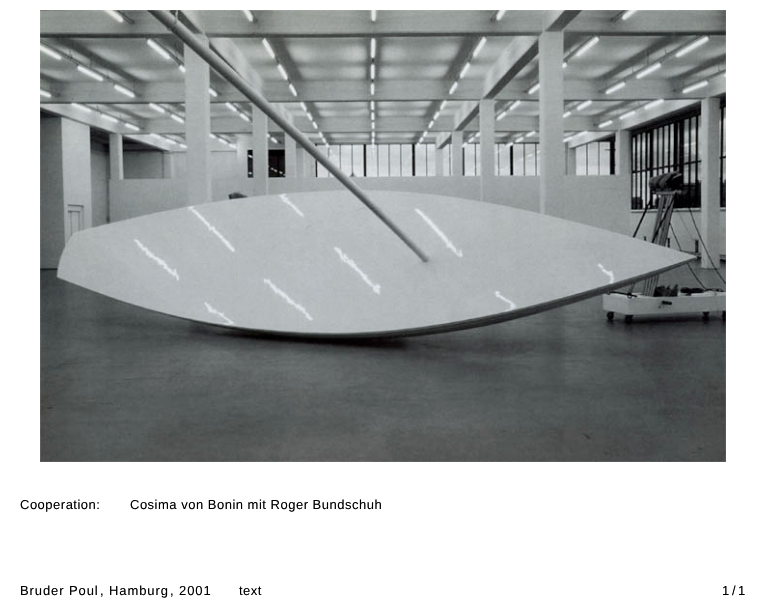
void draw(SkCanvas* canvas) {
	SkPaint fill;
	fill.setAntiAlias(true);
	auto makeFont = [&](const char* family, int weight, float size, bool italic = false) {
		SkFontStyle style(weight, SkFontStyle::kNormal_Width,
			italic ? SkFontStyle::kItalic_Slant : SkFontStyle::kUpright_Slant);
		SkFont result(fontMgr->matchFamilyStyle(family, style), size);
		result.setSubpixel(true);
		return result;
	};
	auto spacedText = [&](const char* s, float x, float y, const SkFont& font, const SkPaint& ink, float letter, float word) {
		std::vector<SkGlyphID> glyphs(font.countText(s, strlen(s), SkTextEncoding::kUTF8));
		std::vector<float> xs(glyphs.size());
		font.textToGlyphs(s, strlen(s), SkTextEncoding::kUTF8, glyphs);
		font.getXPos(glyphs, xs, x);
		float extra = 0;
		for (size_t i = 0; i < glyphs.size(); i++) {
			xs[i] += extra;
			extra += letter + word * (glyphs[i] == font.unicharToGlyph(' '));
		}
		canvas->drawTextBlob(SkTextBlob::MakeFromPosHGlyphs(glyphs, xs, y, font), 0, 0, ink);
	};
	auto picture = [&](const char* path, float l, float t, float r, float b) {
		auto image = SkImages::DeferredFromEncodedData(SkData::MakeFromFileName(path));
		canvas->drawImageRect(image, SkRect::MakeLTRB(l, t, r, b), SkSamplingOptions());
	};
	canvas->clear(0xFFFFFFFF);
	picture("image0.png", 40, 10, 726, 462);
	auto font1 = makeFont("Liberation Sans", 400, 13);
	fill.setColor(0xFF000000);
	spacedText("Cooperation:", 20, 509, font1, fill, 0.5f, 0);
	spacedText("Cosima von Bonin mit Roger Bundschuh", 130, 509, font1, fill, 0.5f, 0);
	spacedText("Bruder Poul", 20, 595, font1, fill, 0.9f, 0);
	spacedText(", Hamburg", 100, 595, font1, fill, 0.9f, 0);
	spacedText(", 2001", 170, 595, font1, fill, 0.9f, 0);
	spacedText("text", 239, 595, font1, fill, 0.5f, 0);
	spacedText("1", 722, 595, font1, fill, 0.5f, 0);
	spacedText("/", 732, 595, font1, fill, 0.5f, 0);
	spacedText("1", 738, 595, font1, fill, 0.5f, 0);
}
